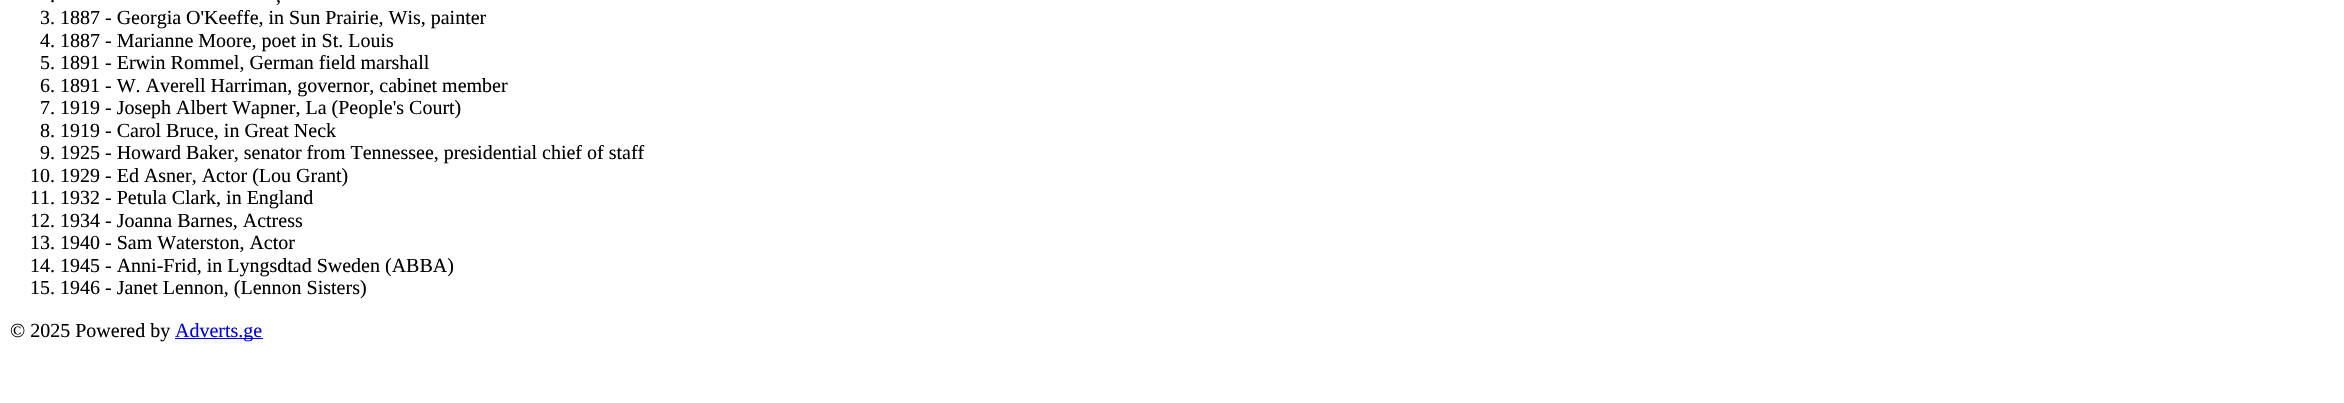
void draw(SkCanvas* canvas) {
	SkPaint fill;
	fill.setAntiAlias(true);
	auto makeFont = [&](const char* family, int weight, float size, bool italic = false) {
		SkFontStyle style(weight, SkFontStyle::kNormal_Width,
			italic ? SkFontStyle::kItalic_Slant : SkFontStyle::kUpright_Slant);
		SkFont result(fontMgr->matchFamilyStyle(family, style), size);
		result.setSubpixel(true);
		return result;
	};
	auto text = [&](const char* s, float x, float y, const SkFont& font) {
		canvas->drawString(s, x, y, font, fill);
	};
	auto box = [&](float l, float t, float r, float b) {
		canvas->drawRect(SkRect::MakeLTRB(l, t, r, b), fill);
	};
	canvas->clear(0xFFFFFFFF);
	fill.setColor(0xFF0000EE);
	box(175, 338, 263, 339);
	auto font1 = makeFont("Liberation Serif", 400, 20);
	fill.setColor(0xFF000000);
	text(".", 50, 2, font1);
	text(",", 276, 2, font1);
	text("3. 1887 - Georgia O'Keeffe, in Sun Prairie, Wis, painter", 40, 24, font1);
	text("4. 1887 - Marianne Moore, poet in St. Louis", 40, 47, font1);
	text("5. 1891 - Erwin Rommel, German field marshall", 40, 69, font1);
	text("6. 1891 - W. Averell Harriman, governor, cabinet member", 40, 92, font1);
	text("7. 1919 - Joseph Albert Wapner, La (People's Court)", 40, 114, font1);
	text("8. 1919 - Carol Bruce, in Great Neck", 40, 137, font1);
	text("9. 1925 - Howard Baker, senator from Tennessee, presidential chief of staff", 40, 159, font1);
	text("10. 1929 - Ed Asner, Actor (Lou Grant)", 30, 182, font1);
	text("11. 1932 - Petula Clark, in England", 30, 204, font1);
	text("12. 1934 - Joanna Barnes, Actress", 30, 227, font1);
	text("13. 1940 - Sam Waterston, Actor", 30, 249, font1);
	text("14. 1945 - Anni-Frid, in Lyngsdtad Sweden (ABBA)", 30, 272, font1);
	text("15. 1946 - Janet Lennon, (Lennon Sisters)", 30, 294, font1);
	text("© 2025 Powered by", 10, 337, font1);
	fill.setColor(0xFF0000EE);
	text("Adverts.ge", 175, 337, font1);
}
